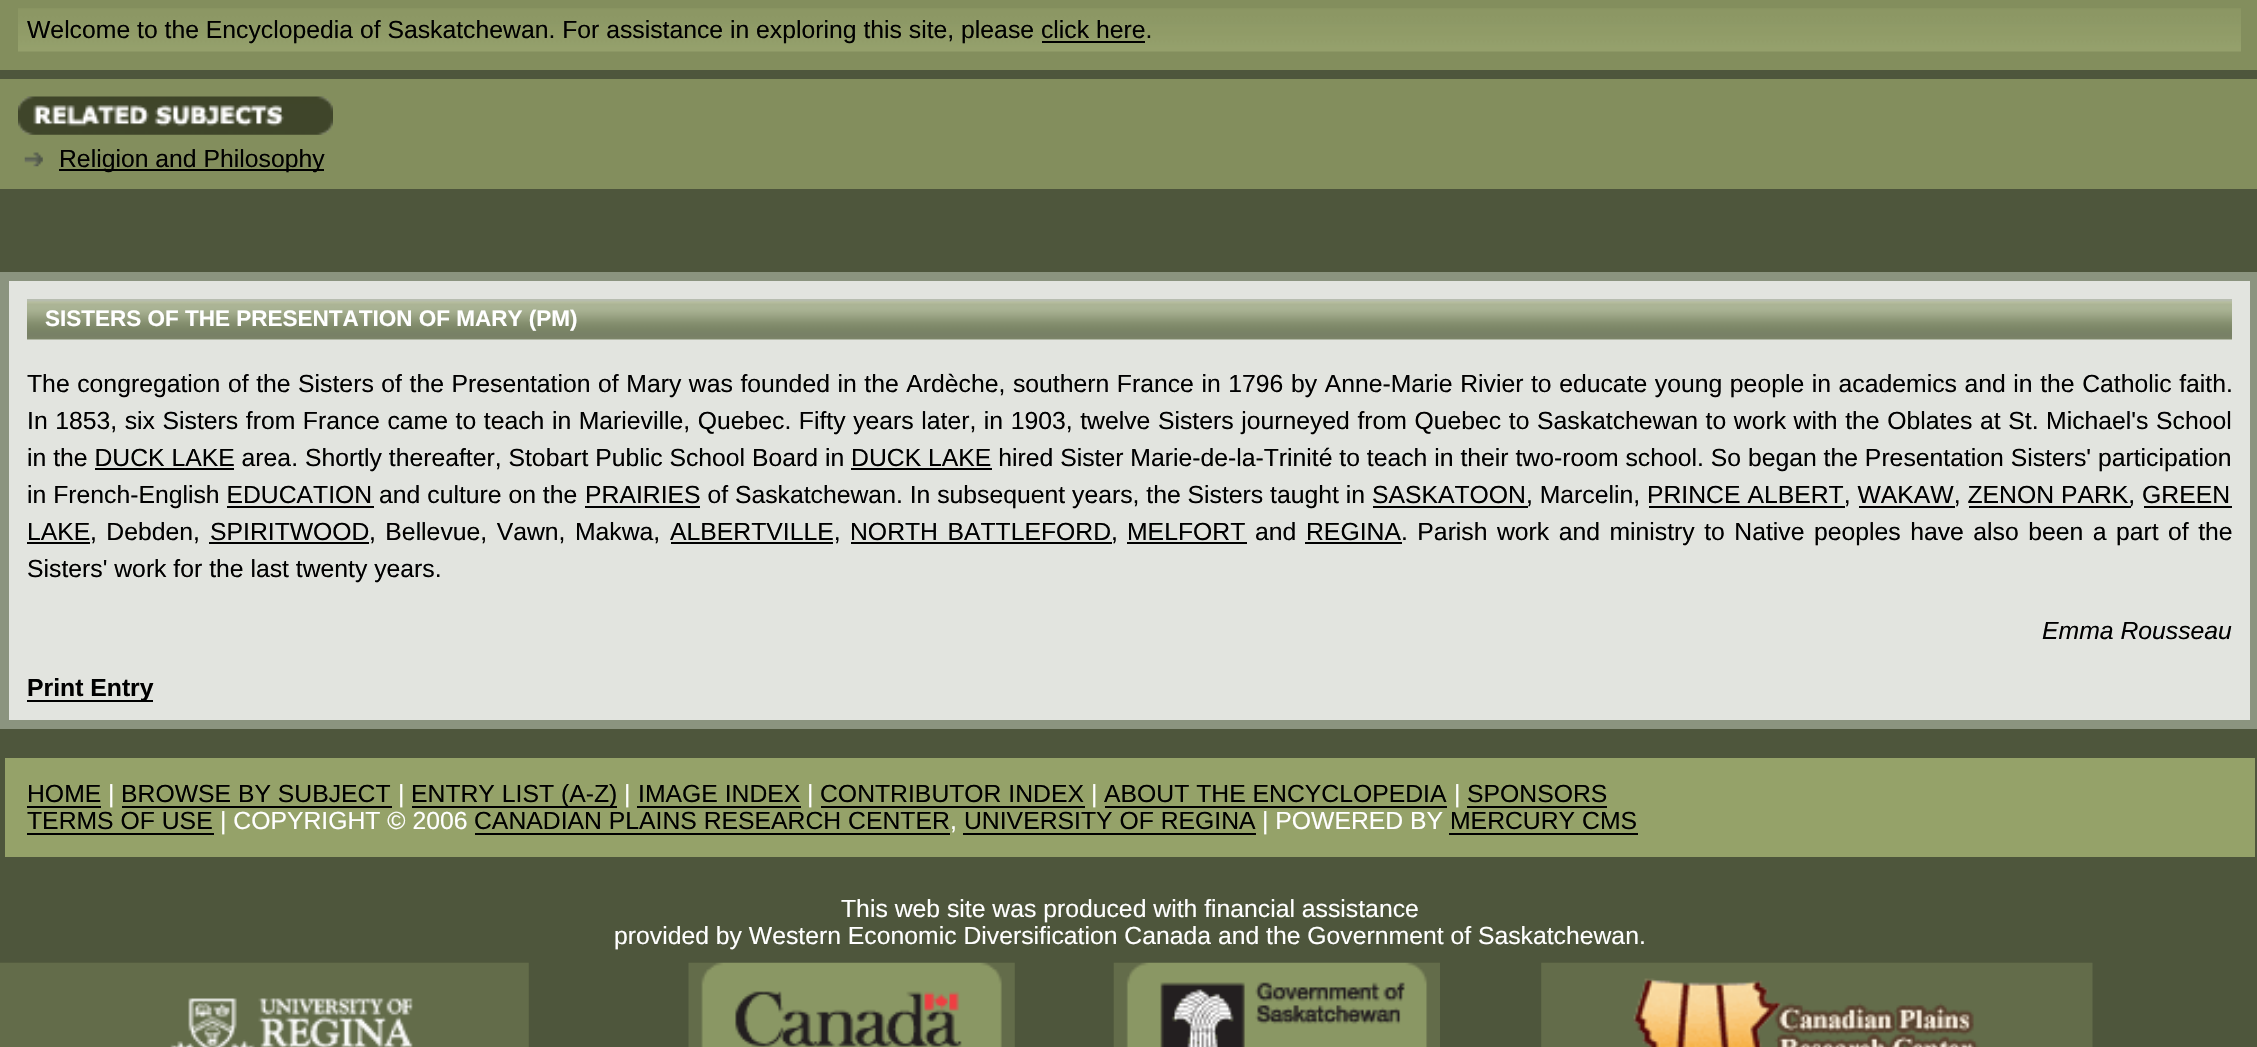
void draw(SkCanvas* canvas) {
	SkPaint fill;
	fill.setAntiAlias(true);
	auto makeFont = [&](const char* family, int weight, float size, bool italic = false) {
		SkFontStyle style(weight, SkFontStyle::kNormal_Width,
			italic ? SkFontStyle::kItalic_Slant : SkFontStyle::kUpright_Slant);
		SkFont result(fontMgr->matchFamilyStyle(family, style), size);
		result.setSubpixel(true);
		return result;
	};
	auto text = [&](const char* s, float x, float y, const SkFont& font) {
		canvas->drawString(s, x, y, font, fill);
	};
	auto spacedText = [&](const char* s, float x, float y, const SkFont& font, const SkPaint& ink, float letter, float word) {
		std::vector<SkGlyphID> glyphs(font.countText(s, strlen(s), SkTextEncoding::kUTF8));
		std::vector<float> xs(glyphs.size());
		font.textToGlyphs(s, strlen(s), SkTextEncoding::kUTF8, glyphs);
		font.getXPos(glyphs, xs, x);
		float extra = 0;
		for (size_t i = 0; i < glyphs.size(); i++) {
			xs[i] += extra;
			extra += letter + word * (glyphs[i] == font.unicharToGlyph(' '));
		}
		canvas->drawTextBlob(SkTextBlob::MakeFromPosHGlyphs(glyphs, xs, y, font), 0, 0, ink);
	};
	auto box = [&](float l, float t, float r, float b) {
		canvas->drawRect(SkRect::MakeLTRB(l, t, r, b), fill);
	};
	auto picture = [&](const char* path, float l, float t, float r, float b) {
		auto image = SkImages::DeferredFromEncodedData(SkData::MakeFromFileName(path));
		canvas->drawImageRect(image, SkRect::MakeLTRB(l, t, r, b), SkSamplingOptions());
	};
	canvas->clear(0xFF4E563C);
	fill.setColor(0xFF838E5D);
	box(0, 0, 2257, 70);
	picture("image0.png", 18, 8, 2241, 52);
	fill.setColor(0xFF000000);
	box(1042, 41, 1145, 43);
	fill.setColor(0xFF838E5D);
	box(0, 79, 2257, 189);
	picture("image1.png", 18, 96, 333, 135);
	picture("image2.png", 24, 152, 43, 167);
	fill.setColor(0xFF000000);
	box(59, 169, 324, 171);
	fill.setColor(0xFF8B947F);
	box(0, 272, 2257, 729);
	fill.setColor(0xFFE2E4DF);
	box(9, 281, 2250, 720);
	picture("image3.png", 27, 299, 2232, 340);
	fill.setColor(0xFF000000);
	box(95, 468, 234, 470);
	box(851, 468, 992, 470);
	box(585, 506, 700, 508);
	box(227, 506, 374, 508);
	box(1373, 506, 1528, 508);
	box(1649, 506, 1845, 508);
	box(1859, 506, 1955, 508);
	box(1969, 506, 2131, 508);
	box(2144, 506, 2232, 508);
	box(27, 542, 90, 544);
	box(209, 542, 369, 544);
	box(671, 542, 833, 544);
	box(851, 542, 1112, 544);
	box(1127, 542, 1247, 544);
	box(1305, 542, 1402, 544);
	box(27, 700, 153, 702);
	fill.setColor(0xFF95A269);
	box(5, 758, 2255, 857);
	fill.setColor(0xFF000000);
	box(27, 806, 101, 808);
	box(122, 806, 392, 808);
	box(412, 806, 617, 808);
	box(637, 806, 801, 808);
	box(821, 806, 1085, 808);
	box(1105, 806, 1447, 808);
	box(1467, 806, 1607, 808);
	box(27, 833, 214, 835);
	box(475, 833, 950, 835);
	box(963, 833, 1256, 835);
	box(1449, 833, 1638, 835);
	picture("image4.png", 0, 962, 529, 1047);
	picture("image5.png", 688, 962, 1015, 1047);
	picture("image6.png", 1113, 962, 1440, 1047);
	picture("image7.png", 1541, 962, 2093, 1047);
	auto font1 = makeFont("Liberation Sans", 400, 24.75f);
	text("Welcome to the Encyclopedia of Saskatchewan. For assistance in exploring this site, please click here.", 27, 38, font1);
	text("Religion and Philosophy", 59, 167, font1);
	auto font2 = makeFont("Liberation Sans", 700, 22.5f);
	fill.setColor(0xFFFFFFFF);
	text("SISTERS OF THE PRESENTATION OF MARY (PM)", 45, 326, font2);
	fill.setColor(0xFF000000);
	spacedText("The congregation of the Sisters of the Presentation of Mary was founded in the Ardèche, southern France in 1796 by Anne-Marie Rivier to educate young people in academics and in the Catholic faith.", 27, 392, font1, fill, 0, 0.7f);
	spacedText("In 1853, six Sisters from France came to teach in Marieville, Quebec. Fifty years later, in 1903, twelve Sisters journeyed from Quebec to Saskatchewan to work with the Oblates at St. Michael's School", 27, 429, font1, fill, 0, 0.7f);
	text("in the DUCK LAKE area. Shortly thereafter, Stobart Public School Board in DUCK LAKE hired Sister Marie-de-la-Trinité to teach in their two-room school. So began the Presentation Sisters' participation", 27, 466, font1);
	text("in French-English EDUCATION and culture on the", 27, 503, font1);
	text("PRAIRIES of Saskatchewan. In subsequent years, the Sisters taught in SASKATOON, Marcelin, PRINCE ALBERT, WAKAW, ZENON PARK, GREEN", 585, 503, font1);
	text("LAKE", 27, 540, font1);
	spacedText(", Debden,", 90, 540, font1, fill, 0, 2.6f);
	text("SPIRITWOOD", 210, 540, font1);
	spacedText(", Bellevue, Vawn, Makwa,", 369, 540, font1, fill, 0, 2.6f);
	text("ALBERTVILLE,", 670, 540, font1);
	spacedText("NORTH BATTLEFORD", 850, 540, font1, fill, 0, 2.6f);
	text(",", 1111, 540, font1);
	text("MELFORT", 1127, 540, font1);
	text("and", 1255, 540, font1);
	text("REGINA", 1306, 540, font1);
	spacedText(". Parish work and ministry to Native peoples have also been a part of the", 1401, 540, font1, fill, 0, 2.6f);
	text("Sisters' work for the last twenty years.", 27, 577, font1);
	auto font3 = makeFont("Liberation Sans", 400, 24.75f, true);
	text("Emma Rousseau", 2042, 639, font3);
	auto font4 = makeFont("Liberation Sans", 700, 24.75f);
	text("Print Entry", 27, 696, font4);
	text("HOME", 27, 802, font1);
	fill.setColor(0xFFFFFFFF);
	text("|", 108, 802, font1);
	fill.setColor(0xFF000000);
	text("BROWSE BY SUBJECT", 121, 802, font1);
	fill.setColor(0xFFFFFFFF);
	text("|", 398, 802, font1);
	fill.setColor(0xFF000000);
	text("ENTRY LIST (A-Z)", 411, 802, font1);
	fill.setColor(0xFFFFFFFF);
	text("|", 624, 802, font1);
	fill.setColor(0xFF000000);
	text("IMAGE INDEX", 638, 802, font1);
	fill.setColor(0xFFFFFFFF);
	text("|", 807, 802, font1);
	fill.setColor(0xFF000000);
	text("CONTRIBUTOR INDEX", 820, 802, font1);
	fill.setColor(0xFFFFFFFF);
	text("|", 1091, 802, font1);
	fill.setColor(0xFF000000);
	text("ABOUT THE ENCYCLOPEDIA", 1104, 802, font1);
	fill.setColor(0xFFFFFFFF);
	text("|", 1454, 802, font1);
	fill.setColor(0xFF000000);
	text("SPONSORS", 1467, 802, font1);
	text("TERMS OF USE", 27, 829, font1);
	fill.setColor(0xFFFFFFFF);
	text("| COPYRIGHT © 2006", 220, 829, font1);
	fill.setColor(0xFF000000);
	text("CANADIAN PLAINS RESEARCH CENTER", 474, 829, font1);
	fill.setColor(0xFFFFFFFF);
	text(",", 950, 829, font1);
	fill.setColor(0xFF000000);
	text("UNIVERSITY OF REGINA", 964, 829, font1);
	fill.setColor(0xFFFFFFFF);
	text("| POWERED BY", 1262, 829, font1);
	fill.setColor(0xFF000000);
	text("MERCURY CMS", 1450, 829, font1);
	fill.setColor(0xFFFFFFFF);
	text("This web site was produced with financial assistance", 841, 917, font1);
	text("provided by Western Economic Diversification Canada and the Government of Saskatchewan.", 614, 944, font1);
}
